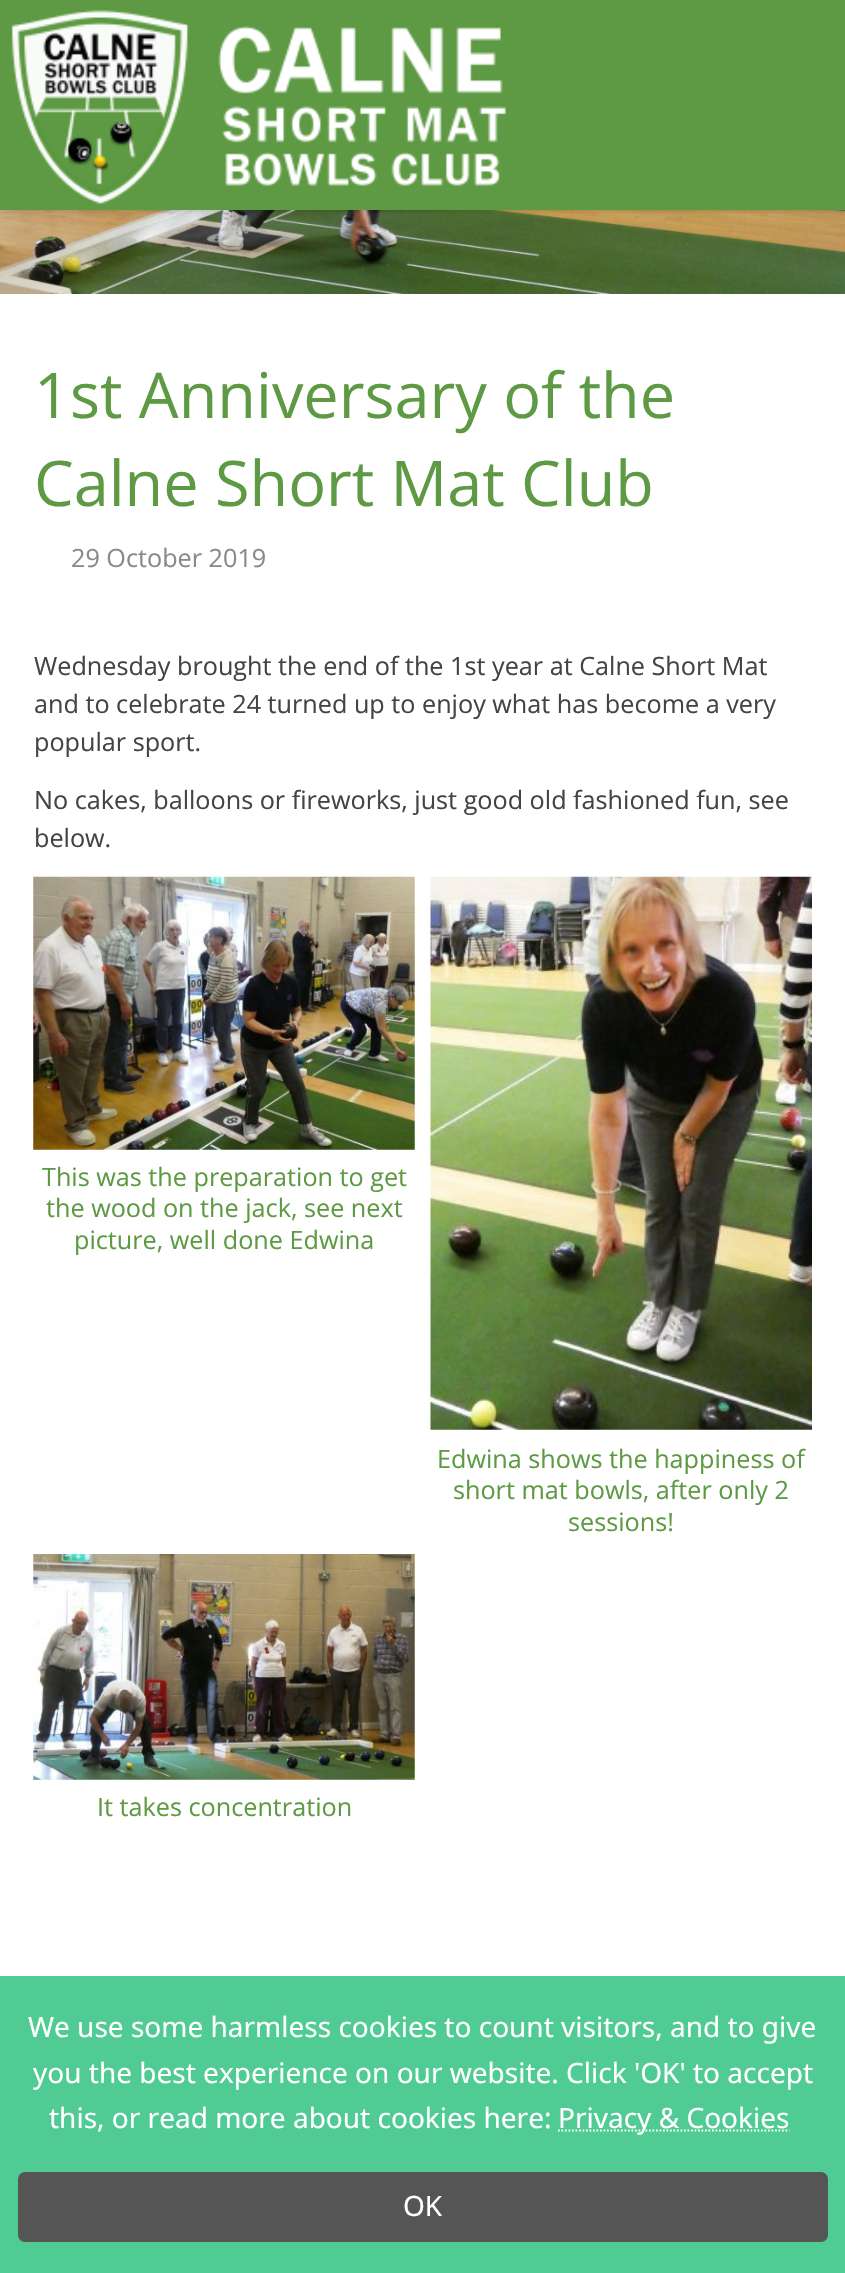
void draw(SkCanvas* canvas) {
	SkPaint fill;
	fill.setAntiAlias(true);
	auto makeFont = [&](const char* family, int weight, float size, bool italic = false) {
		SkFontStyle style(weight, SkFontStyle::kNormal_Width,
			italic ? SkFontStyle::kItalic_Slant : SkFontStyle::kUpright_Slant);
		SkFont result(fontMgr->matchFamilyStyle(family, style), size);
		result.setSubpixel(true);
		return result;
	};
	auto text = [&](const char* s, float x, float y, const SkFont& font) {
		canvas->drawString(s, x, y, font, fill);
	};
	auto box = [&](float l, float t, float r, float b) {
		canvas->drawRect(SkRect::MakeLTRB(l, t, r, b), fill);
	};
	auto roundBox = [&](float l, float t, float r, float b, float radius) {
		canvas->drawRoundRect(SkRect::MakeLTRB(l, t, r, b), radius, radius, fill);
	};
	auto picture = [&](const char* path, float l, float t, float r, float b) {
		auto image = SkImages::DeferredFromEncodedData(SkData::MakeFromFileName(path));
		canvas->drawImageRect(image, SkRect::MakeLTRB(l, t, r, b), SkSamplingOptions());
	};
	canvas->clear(0xFFFFFFFF);
	picture("image1.png", 0, 210, 845, 294);
	fill.setColor(0x33000000);
	fill.setMaskFilter(SkMaskFilter::MakeBlur(kNormal_SkBlurStyle, 2.5f));
	canvas->drawRect(SkRect::MakeLTRB(0, 0, 845, 210), fill);
	fill.setMaskFilter(nullptr);
	fill.setColor(0xFF5E9A43);
	box(0, 0, 845, 210);
	picture("image0.png", 11, 10, 506, 204);
	picture("image2.png", 33, 876, 415, 1150);
	picture("image3.png", 430, 876, 812, 1430);
	picture("image4.png", 33, 1554, 415, 1780);
	fill.setColor(0xFF51CB94);
	box(0, 1976, 845, 2273);
	fill.setStyle(SkPaint::kStroke_Style);
	fill.setStrokeWidth(1.8f);
	fill.setColor(0xFFFFFFFF);
	fill.setPathEffect(SkDashPathEffect::Make({{1.75f, 1.75f}}, 0));
	canvas->drawPath(SkPathBuilder().moveTo(558, 2130.5f).lineTo(789.5f, 2130.5f).detach(), fill);
	fill.setPathEffect(nullptr);
	fill.setStyle(SkPaint::kFill_Style);
	fill.setColor(0xFF555555);
	roundBox(18, 2172, 828, 2242, 7);
	auto font1 = makeFont("Open Sans", 400, 63);
	fill.setColor(0xFF5E9A43);
	text("1st Anniversary of the", 34, 418, font1);
	text("Calne Short Mat Club", 34, 506, font1);
	auto font2 = makeFont("Open Sans", 400, 25.2f);
	fill.setColor(0xFF898989);
	text("29 October 2019", 71, 567, font2);
	fill.setColor(0xFF444444);
	text("Wednesday brought the end of the 1st year at Calne Short Mat", 34, 675, font2);
	text("and to celebrate 24 turned up to enjoy what has become a very", 34, 713, font2);
	text("popular sport.", 34, 751, font2);
	text("No cakes, balloons or fireworks, just good old fashioned fun, see", 34, 809, font2);
	text("below.", 34, 847, font2);
	fill.setColor(0xFF5E9A43);
	text("This was the preparation to get", 42, 1186, font2);
	text("the wood on the jack, see next", 46, 1217, font2);
	text("picture, well done Edwina", 74, 1249, font2);
	text("Edwina shows the happiness of", 437, 1468, font2);
	text("short mat bowls, after only 2", 453, 1499, font2);
	text("sessions!", 568, 1531, font2);
	text("It takes concentration", 97, 1816, font2);
	auto font3 = makeFont("Noto Sans", 400, 28);
	fill.setColor(0xFFFFFFFF);
	text("We use some harmless cookies to count visitors, and to give", 28, 2037, font3);
	text("you the best experience on our website. Click 'OK' to accept", 33, 2083, font3);
	text("this, or read more about cookies here:", 49, 2128, font3);
	text("Privacy & Cookies", 558, 2128, font3);
	text("OK", 403, 2216, font3);
}
